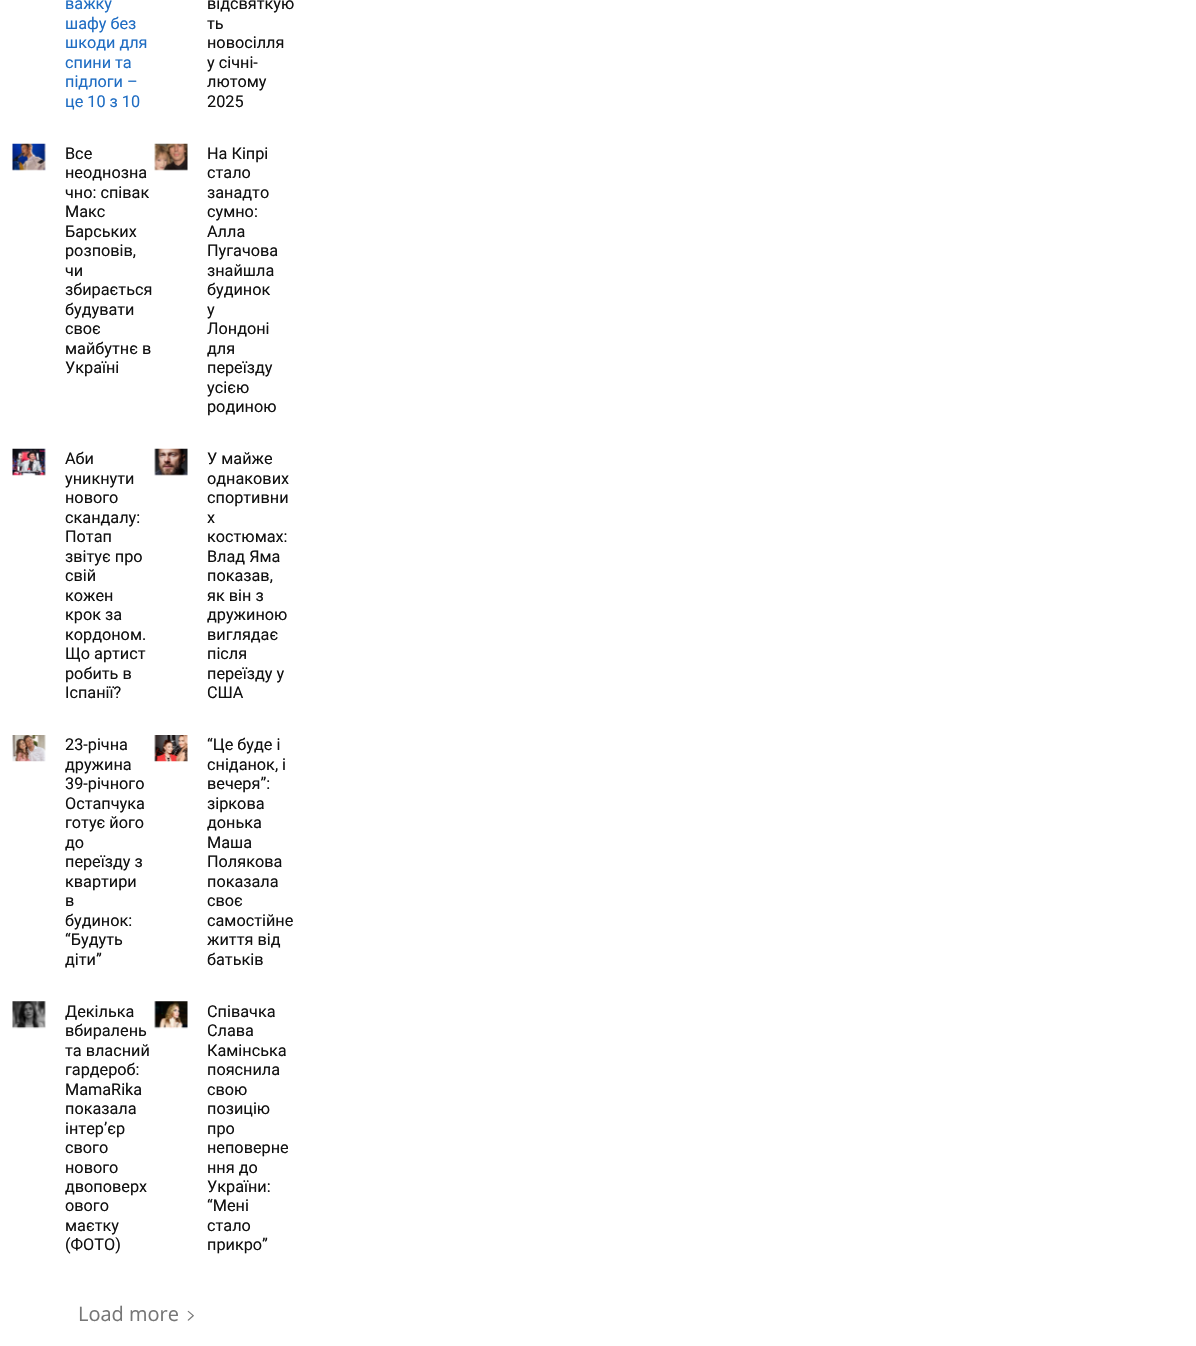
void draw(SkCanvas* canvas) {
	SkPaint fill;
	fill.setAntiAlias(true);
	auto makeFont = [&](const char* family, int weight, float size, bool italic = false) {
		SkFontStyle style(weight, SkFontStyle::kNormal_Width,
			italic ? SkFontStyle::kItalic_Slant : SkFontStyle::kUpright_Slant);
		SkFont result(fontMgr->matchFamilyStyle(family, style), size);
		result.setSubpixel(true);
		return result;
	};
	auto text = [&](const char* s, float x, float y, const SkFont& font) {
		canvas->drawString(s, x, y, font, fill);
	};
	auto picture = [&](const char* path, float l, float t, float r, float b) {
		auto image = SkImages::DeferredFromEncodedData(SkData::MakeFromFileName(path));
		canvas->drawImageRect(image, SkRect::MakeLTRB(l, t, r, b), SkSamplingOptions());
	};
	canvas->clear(0xFFFFFFFF);
	picture("image0.png", 12, 143, 46, 171);
	picture("image1.png", 154, 143, 188, 171);
	picture("image2.png", 12, 448, 46, 476);
	picture("image3.png", 154, 448, 188, 476);
	picture("image4.png", 12, 735, 46, 762);
	picture("image5.png", 154, 735, 188, 762);
	picture("image6.png", 12, 1001, 46, 1029);
	picture("image7.png", 154, 1001, 188, 1029);
	picture("image8.png", 187, 1310, 194, 1321);
	auto font1 = makeFont("Roboto", 400, 16.25f);
	fill.setColor(0xFF1F6DC3);
	text("важку", 65, 9, font1);
	text("шафу без", 65, 29, font1);
	text("шкоди для", 65, 48, font1);
	text("спини та", 65, 68, font1);
	text("підлоги –", 65, 87, font1);
	text("це 10 з 10", 65, 107, font1);
	fill.setColor(0xFF111111);
	text("відсвяткую", 207, 9, font1);
	text("ть", 207, 29, font1);
	text("новосілля", 207, 48, font1);
	text("у січні-", 207, 68, font1);
	text("лютому", 207, 87, font1);
	text("2025", 207, 107, font1);
	text("Все", 65, 159, font1);
	text("неоднозна", 65, 178, font1);
	text("чно: співак", 65, 198, font1);
	text("Макс", 65, 217, font1);
	text("Барських", 65, 237, font1);
	text("розповів,", 65, 256, font1);
	text("чи", 65, 276, font1);
	text("збирається", 65, 295, font1);
	text("будувати", 65, 315, font1);
	text("своє", 65, 334, font1);
	text("майбутнє в", 65, 354, font1);
	text("Україні", 65, 373, font1);
	text("На Кіпрі", 207, 159, font1);
	text("стало", 207, 178, font1);
	text("занадто", 207, 198, font1);
	text("сумно:", 207, 217, font1);
	text("Алла", 207, 237, font1);
	text("Пугачова", 207, 256, font1);
	text("знайшла", 207, 276, font1);
	text("будинок", 207, 295, font1);
	text("у", 207, 315, font1);
	text("Лондоні", 207, 334, font1);
	text("для", 207, 354, font1);
	text("переїзду", 207, 373, font1);
	text("усією", 207, 393, font1);
	text("родиною", 207, 412, font1);
	text("Аби", 65, 464, font1);
	text("уникнути", 65, 484, font1);
	text("нового", 65, 503, font1);
	text("скандалу:", 65, 523, font1);
	text("Потап", 65, 542, font1);
	text("звітує про", 65, 562, font1);
	text("свій", 65, 581, font1);
	text("кожен", 65, 601, font1);
	text("крок за", 65, 620, font1);
	text("кордоном.", 65, 640, font1);
	text("Що артист", 65, 659, font1);
	text("робить в", 65, 679, font1);
	text("Іспанії?", 65, 698, font1);
	text("У майже", 207, 464, font1);
	text("однакових", 207, 484, font1);
	text("спортивни", 207, 503, font1);
	text("х", 207, 523, font1);
	text("костюмах:", 207, 542, font1);
	text("Влад Яма", 207, 562, font1);
	text("показав,", 207, 581, font1);
	text("як він з", 207, 601, font1);
	text("дружиною", 207, 620, font1);
	text("виглядає", 207, 640, font1);
	text("після", 207, 659, font1);
	text("переїзду у", 207, 679, font1);
	text("США", 207, 698, font1);
	text("23-річна", 65, 750, font1);
	text("дружина", 65, 770, font1);
	text("39-річного", 65, 789, font1);
	text("Остапчука", 65, 809, font1);
	text("готує його", 65, 828, font1);
	text("до", 65, 848, font1);
	text("переїзду з", 65, 867, font1);
	text("квартири", 65, 887, font1);
	text("в", 65, 906, font1);
	text("будинок:", 65, 926, font1);
	text("“Будуть", 65, 945, font1);
	text("діти”", 65, 965, font1);
	text("“Це буде і", 207, 750, font1);
	text("сніданок, і", 207, 770, font1);
	text("вечеря”:", 207, 789, font1);
	text("зіркова", 207, 809, font1);
	text("донька", 207, 828, font1);
	text("Маша", 207, 848, font1);
	text("Полякова", 207, 867, font1);
	text("показала", 207, 887, font1);
	text("своє", 207, 906, font1);
	text("самостійне", 207, 926, font1);
	text("життя від", 207, 945, font1);
	text("батьків", 207, 965, font1);
	text("Декілька", 65, 1017, font1);
	text("вбиралень", 65, 1036, font1);
	text("та власний", 65, 1056, font1);
	text("гардероб:", 65, 1075, font1);
	text("MamaRika", 65, 1095, font1);
	text("показала", 65, 1114, font1);
	text("інтер’єр", 65, 1134, font1);
	text("свого", 65, 1153, font1);
	text("нового", 65, 1173, font1);
	text("двоповерх", 65, 1192, font1);
	text("ового", 65, 1211, font1);
	text("маєтку", 65, 1231, font1);
	text("(ФОТО)", 65, 1250, font1);
	text("Співачка", 207, 1017, font1);
	text("Слава", 207, 1036, font1);
	text("Камінська", 207, 1056, font1);
	text("пояснила", 207, 1075, font1);
	text("свою", 207, 1095, font1);
	text("позицію", 207, 1114, font1);
	text("про", 207, 1134, font1);
	text("неповерне", 207, 1153, font1);
	text("ння до", 207, 1173, font1);
	text("України:", 207, 1192, font1);
	text("“Мені", 207, 1211, font1);
	text("стало", 207, 1231, font1);
	text("прикро”", 207, 1250, font1);
	auto font2 = makeFont("Open Sans", 400, 20);
	fill.setColor(0xFF767676);
	text("Load more", 78, 1321, font2);
}
